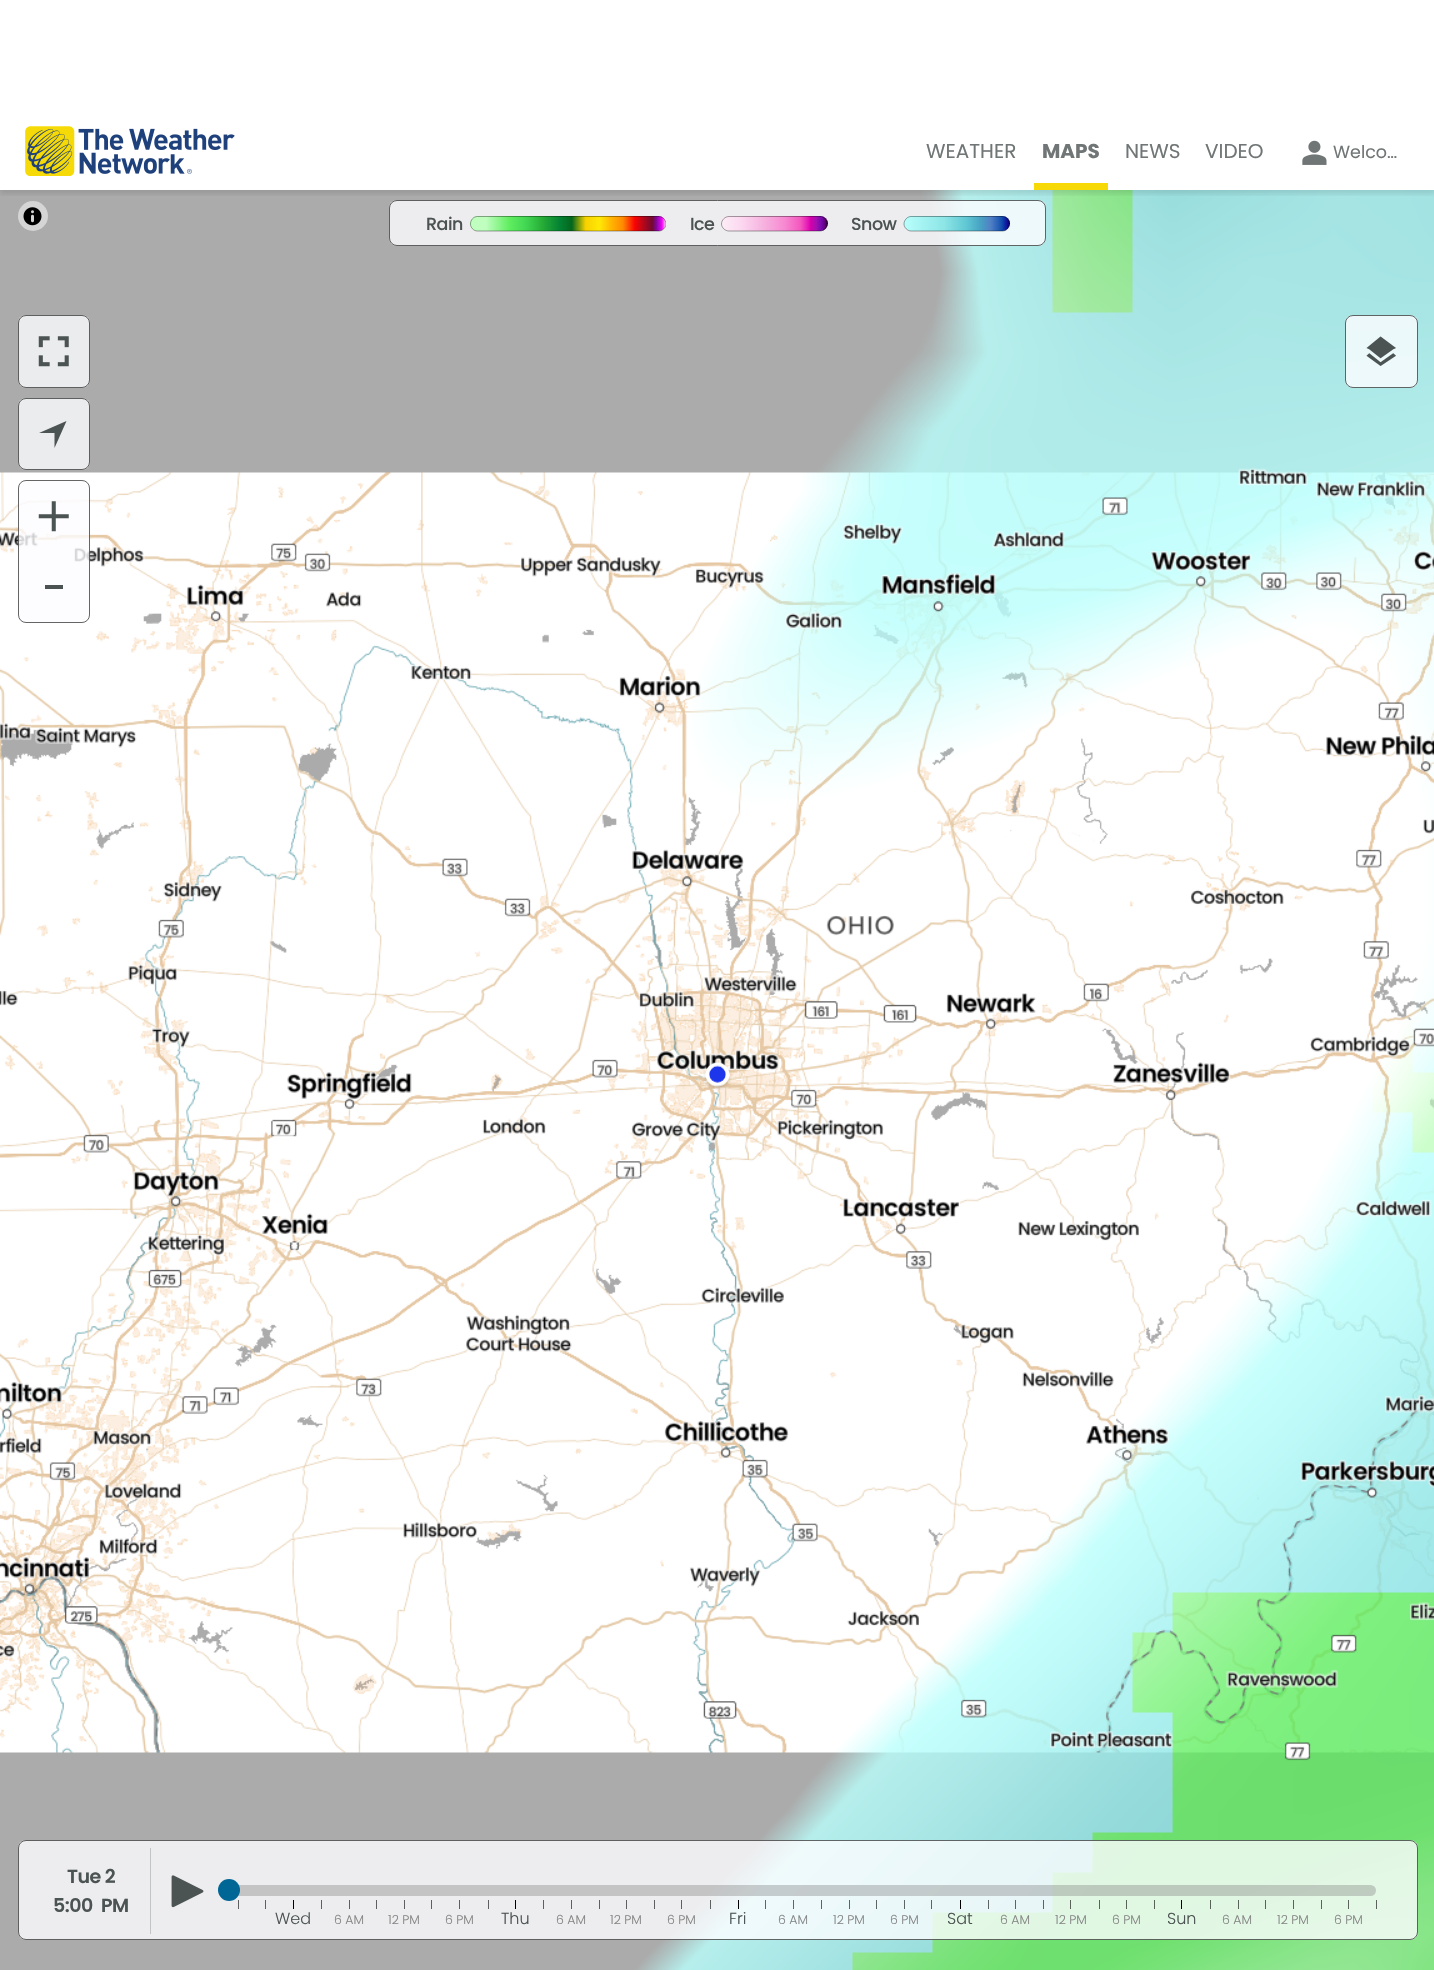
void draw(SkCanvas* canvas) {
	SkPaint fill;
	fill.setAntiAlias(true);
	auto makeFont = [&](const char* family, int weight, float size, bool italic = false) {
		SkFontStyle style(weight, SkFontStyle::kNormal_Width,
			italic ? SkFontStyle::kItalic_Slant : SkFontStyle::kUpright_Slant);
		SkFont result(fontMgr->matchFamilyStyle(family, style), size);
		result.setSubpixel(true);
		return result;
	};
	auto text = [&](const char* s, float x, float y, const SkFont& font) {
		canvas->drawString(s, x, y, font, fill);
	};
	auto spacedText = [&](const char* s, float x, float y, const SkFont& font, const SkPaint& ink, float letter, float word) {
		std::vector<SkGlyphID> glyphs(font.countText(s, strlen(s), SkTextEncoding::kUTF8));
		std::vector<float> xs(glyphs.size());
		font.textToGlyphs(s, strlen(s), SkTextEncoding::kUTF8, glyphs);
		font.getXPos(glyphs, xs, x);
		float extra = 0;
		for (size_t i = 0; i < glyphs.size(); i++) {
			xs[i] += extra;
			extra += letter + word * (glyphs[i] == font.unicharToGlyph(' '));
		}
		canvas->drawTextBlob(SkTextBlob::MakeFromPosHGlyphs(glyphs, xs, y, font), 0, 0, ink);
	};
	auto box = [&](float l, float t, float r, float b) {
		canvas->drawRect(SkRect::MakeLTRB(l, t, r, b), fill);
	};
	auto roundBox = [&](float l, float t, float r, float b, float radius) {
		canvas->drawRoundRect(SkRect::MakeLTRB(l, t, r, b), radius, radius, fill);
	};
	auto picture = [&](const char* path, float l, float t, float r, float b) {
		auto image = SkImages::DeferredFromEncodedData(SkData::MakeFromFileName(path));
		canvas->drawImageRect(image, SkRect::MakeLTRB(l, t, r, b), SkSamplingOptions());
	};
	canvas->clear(0xFFFFFFFF);
	picture("image2.png", 0, 190, 1434, 1970);
	fill.setColor(0xCCFCFDFF);
	roundBox(389, 200, 1046, 246, 8);
	fill.setStyle(SkPaint::kStroke_Style);
	fill.setStrokeWidth(1);
	fill.setColor(0x99000000);
	canvas->drawRoundRect(SkRect::MakeLTRB(389.5f, 200.5f, 1045.5f, 245.5f), 7.5f, 7.5f, fill);
	canvas->save();
	canvas->clipRect(SkRect::MakeLTRB(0, 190, 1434, 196));
	fill.setStyle(SkPaint::kFill_Style);
	fill.setColor(0x1A000000);
	fill.setMaskFilter(SkMaskFilter::MakeBlur(kNormal_SkBlurStyle, 2.5f));
	canvas->drawRect(SkRect::MakeLTRB(0, 116, 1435, 194), fill);
	fill.setMaskFilter(nullptr);
	canvas->restore();
	picture("image0.png", 25, 126, 235, 176);
	fill.setColor(0xFFF6D906);
	box(1034, 183, 1108, 190);
	picture("image1.png", 1302, 140, 1327, 165);
	picture("image3.png", 703, 1062, 732, 1090);
	fill.setColor(0xFFD5D5D5);
	canvas->drawCircle(33, 216, 15, fill);
	picture("image4.png", 23, 207, 42, 226);
	{
		const SkColor colors[] = {0xFFC0FEC0, 0xFFC0FEC0, 0xFF60EE60, 0xFF40D552, 0xFF26AC36, 0xFF048133, 0xFF04661D, 0xFFF7D100, 0xFFFFE906, 0xFFFFB501, 0xFFFF8A01, 0xFFFA0404, 0xFF700A30, 0xFF810696, 0xFFC506DD, 0xFFFF00FF, 0xFFF8E7E7};
		const float stops[] = {0, 0.08f, 0.2f, 0.29f, 0.37f, 0.46f, 0.52f, 0.59f, 0.66f, 0.72f, 0.78f, 0.84f, 0.93f, 0.95f, 0.97f, 0.98f, 1};
		const SkPoint ends[] = {{470, 224}, {666, 224}};
		fill.setShader(SkGradientShader::MakeLinear(ends, colors, stops, 17, SkTileMode::kClamp));
		fill.setAlpha(255);
	}
	roundBox(470, 216, 666, 231, 7.5f);
	canvas->save();
	canvas->clipRect(SkRect::MakeLTRB(425, 211, 666, 236));
	fill.setStyle(SkPaint::kStroke_Style);
	fill.setStrokeWidth(0.6f);
	fill.setShader(nullptr);
	fill.setColor(0x99000000);
	canvas->drawPath(SkPathBuilder().moveTo(477.5f, 216.5f).lineTo(659, 216.5f).cubicTo(662.5f, 216.5f, 666, 220, 666, 224).cubicTo(666, 227.5f, 662.5f, 231, 659, 231).lineTo(477.5f, 231).cubicTo(473.5f, 231, 470.5f, 227.5f, 470.5f, 224).cubicTo(470.5f, 220, 473.5f, 216.5f, 477.5f, 216.5f).close().detach(), fill);
	canvas->restore();
	fill.setStyle(SkPaint::kFill_Style);
	{
		const SkColor colors[] = {0xFFFDEEF7, 0xFFFCD8F0, 0xFFF6B2DF, 0xFFF78AD2, 0xFFF459BF, 0xFFE824B8, 0xFFD400AC, 0xFFA410B0, 0xFF730AAE, 0xFF62007B, 0xFF31003E};
		const float stops[] = {0, 0.19f, 0.4f, 0.59f, 0.74f, 0.8f, 0.84f, 0.89f, 0.94f, 0.97f, 1};
		const SkPoint ends[] = {{721, 224}, {828, 224}};
		fill.setShader(SkGradientShader::MakeLinear(ends, colors, stops, 11, SkTileMode::kClamp));
		fill.setAlpha(255);
	}
	roundBox(721, 216, 828, 231, 7.5f);
	fill.setStyle(SkPaint::kStroke_Style);
	fill.setShader(nullptr);
	fill.setColor(0x99000000);
	canvas->drawPath(SkPathBuilder().moveTo(729, 216.5f).lineTo(820, 216.5f).cubicTo(824, 216.5f, 827, 220, 827, 224).cubicTo(827, 227.5f, 824, 231, 820, 231).lineTo(729, 231).cubicTo(725, 231, 721.5f, 227.5f, 721.5f, 224).cubicTo(721.5f, 220, 725, 216.5f, 729, 216.5f).close().detach(), fill);
	fill.setStyle(SkPaint::kFill_Style);
	{
		const SkColor colors[] = {0xFFB8FFFC, 0xFF8DE5E6, 0xFF5FC7D3, 0xFF48A3C4, 0xFF4D8DC4, 0xFF517FC5, 0xFF3D71BE, 0xFF2C64B9, 0xFF1150AF, 0xFF0D0799, 0xFF070348};
		const float stops[] = {0, 0.38f, 0.59f, 0.72f, 0.78f, 0.82f, 0.85f, 0.88f, 0.92f, 0.98f, 1};
		const SkPoint ends[] = {{904, 224}, {1010, 224}};
		fill.setShader(SkGradientShader::MakeLinear(ends, colors, stops, 11, SkTileMode::kClamp));
		fill.setAlpha(255);
	}
	roundBox(904, 216, 1010, 231, 7.5f);
	fill.setStyle(SkPaint::kStroke_Style);
	fill.setShader(nullptr);
	fill.setColor(0x99000000);
	canvas->drawPath(SkPathBuilder().moveTo(911, 216.5f).lineTo(1002.5f, 216.5f).cubicTo(1006.5f, 216.5f, 1009.5f, 220, 1009.5f, 224).cubicTo(1009.5f, 227.5f, 1006.5f, 231, 1002.5f, 231).lineTo(911, 231).cubicTo(907.5f, 231, 904, 227.5f, 904, 224).cubicTo(904, 220, 907.5f, 216.5f, 911, 216.5f).close().detach(), fill);
	fill.setStyle(SkPaint::kFill_Style);
	fill.setColor(0xFFEBECEE);
	roundBox(18, 315, 90, 388, 8);
	fill.setStyle(SkPaint::kStroke_Style);
	fill.setStrokeWidth(1);
	fill.setColor(0x99000000);
	canvas->drawRoundRect(SkRect::MakeLTRB(18.5f, 315.5f, 89.5f, 387.5f), 7.5f, 7.5f, fill);
	picture("image5.png", 38, 336, 69, 367);
	fill.setStyle(SkPaint::kFill_Style);
	fill.setColor(0xFFEBECEE);
	roundBox(18, 398, 90, 470, 8);
	fill.setStyle(SkPaint::kStroke_Style);
	fill.setColor(0x99000000);
	canvas->drawRoundRect(SkRect::MakeLTRB(18.5f, 398.5f, 89.5f, 469.5f), 7.5f, 7.5f, fill);
	fill.setStyle(SkPaint::kFill_Style);
	fill.setColor(0xFF4C5353);
	canvas->drawPath(SkPathBuilder().moveTo(66.5f, 421).lineTo(39, 433).lineTo(54.5f, 433).lineTo(54.5f, 448).close().detach(), fill);
	fill.setColor(0xCCFCFDFF);
	roundBox(18, 480, 90, 623, 8);
	fill.setStyle(SkPaint::kStroke_Style);
	fill.setColor(0x99000000);
	canvas->drawRoundRect(SkRect::MakeLTRB(18.5f, 480.5f, 89.5f, 622.5f), 7.5f, 7.5f, fill);
	picture("image6.png", 38, 501, 69, 532);
	fill.setStyle(SkPaint::kFill_Style);
	fill.setColor(0xFF4C5353);
	box(45, 585, 63, 589);
	fill.setColor(0xCCFCFDFF);
	roundBox(1345, 315, 1418, 388, 8);
	fill.setStyle(SkPaint::kStroke_Style);
	fill.setColor(0x99000000);
	canvas->drawRoundRect(SkRect::MakeLTRB(1345.5f, 315.5f, 1417.5f, 387.5f), 7.5f, 7.5f, fill);
	picture("image7.png", 1366, 336, 1396, 366);
	fill.setStyle(SkPaint::kFill_Style);
	fill.setColor(0xCCFCFDFF);
	roundBox(18, 1840, 1418, 1940, 8);
	fill.setStyle(SkPaint::kStroke_Style);
	fill.setColor(0x99000000);
	canvas->drawRoundRect(SkRect::MakeLTRB(18.5f, 1840.5f, 1417.5f, 1939.5f), 7.5f, 7.5f, fill);
	fill.setStyle(SkPaint::kFill_Style);
	fill.setColor(0xFFC3C4C5);
	box(150, 1848, 151, 1934);
	picture("image8.png", 171, 1875, 204, 1908);
	fill.setColor(0x66868686);
	roundBox(229, 1885, 1376, 1896, 5.5f);
	fill.setColor(0xFF5E5F5F);
	box(238, 1900, 239, 1909);
	fill.setColor(0xFF006695);
	canvas->drawCircle(229, 1890, 11, fill);
	fill.setColor(0xFF5E5F5F);
	box(265, 1900, 266, 1909);
	box(321, 1900, 322, 1909);
	box(376, 1900, 377, 1909);
	box(431, 1900, 432, 1909);
	box(488, 1900, 489, 1909);
	box(543, 1900, 544, 1909);
	box(599, 1900, 600, 1909);
	box(654, 1900, 655, 1909);
	fill.setColor(0xFF5F6061);
	box(710, 1900, 711, 1909);
	fill.setColor(0xFF5F6464);
	box(765, 1900, 766, 1909);
	fill.setColor(0xFF5E6464);
	box(821, 1900, 822, 1909);
	fill.setColor(0xFF5E6364);
	box(876, 1900, 877, 1909);
	fill.setColor(0xFF5D6364);
	box(931, 1900, 932, 1909);
	fill.setColor(0xFF5D6363);
	box(988, 1900, 989, 1909);
	fill.setColor(0xFF5D6263);
	box(1043, 1900, 1044, 1909);
	fill.setColor(0xFF59635A);
	box(1099, 1900, 1100, 1909);
	box(1154, 1900, 1155, 1909);
	box(1210, 1900, 1211, 1909);
	fill.setColor(0xFF5A635B);
	box(1265, 1900, 1266, 1909);
	fill.setColor(0xFF5B635C);
	box(1321, 1900, 1322, 1909);
	box(1376, 1900, 1377, 1909);
	fill.setColor(0xFF000000);
	box(293, 1900, 294, 1909);
	fill.setColor(0xFF5E5F5F);
	box(349, 1900, 350, 1909);
	box(404, 1900, 405, 1909);
	box(459, 1900, 460, 1909);
	fill.setColor(0xFF000000);
	box(515, 1900, 516, 1909);
	fill.setColor(0xFF5E5F5F);
	box(571, 1900, 572, 1909);
	box(626, 1900, 627, 1909);
	box(681, 1900, 682, 1909);
	fill.setColor(0xFF000000);
	box(738, 1900, 739, 1909);
	fill.setColor(0xFF5F6464);
	box(793, 1900, 794, 1909);
	fill.setColor(0xFF5E6364);
	box(849, 1900, 850, 1909);
	box(904, 1900, 905, 1909);
	fill.setColor(0xFF000000);
	box(960, 1900, 961, 1909);
	fill.setColor(0xFF5D6363);
	box(1015, 1900, 1016, 1909);
	fill.setColor(0xFF5A635A);
	box(1070, 1900, 1071, 1909);
	fill.setColor(0xFF59635A);
	box(1126, 1900, 1127, 1909);
	fill.setColor(0xFF000000);
	box(1181, 1900, 1182, 1909);
	fill.setColor(0xFF5A635B);
	box(1238, 1900, 1239, 1909);
	box(1293, 1900, 1294, 1909);
	fill.setColor(0xFF5B635C);
	box(1348, 1900, 1349, 1909);
	auto font1 = makeFont("Poppins", 400, 20);
	fill.setColor(0xFF707575);
	text("WEATHER", 926, 158, font1);
	auto font2 = makeFont("Poppins", 700, 20);
	text("MAPS", 1042, 158, font2);
	text("NEWS", 1125, 158, font1);
	text("VIDEO", 1205, 158, font1);
	auto font3 = makeFont("Poppins", 400, 17.5f);
	text("Welco…", 1333, 158, font3);
	auto font4 = makeFont("Poppins", 500, 17.5f);
	fill.setColor(0xFF4C5353);
	spacedText("Rain", 426, 230, font4, fill, -0.5f, 0);
	spacedText("Ice", 690, 230, font4, fill, -0.5f, 0);
	spacedText("Snow", 851, 230, font4, fill, -0.5f, 0);
	auto font5 = makeFont("Poppins", 600, 19);
	spacedText("Tue 2", 67, 1883, font5, fill, -0.5f, 0);
	spacedText("5:00", 53, 1912, font5, fill, -0.5f, 0);
	spacedText("PM", 101, 1912, font5, fill, -0.5f, 0);
	auto font6 = makeFont("Poppins", 300, 16);
	text("Wed", 275, 1924, font6);
	auto font7 = makeFont("Poppins", 300, 12.5f);
	fill.setColor(0xFF868686);
	text("6 AM", 334, 1924, font7);
	text("12 PM", 388, 1924, font7);
	text("6 PM", 445, 1924, font7);
	fill.setColor(0xFF4C5353);
	text("Thu", 501, 1924, font6);
	fill.setColor(0xFF868686);
	text("6 AM", 556, 1924, font7);
	text("12 PM", 610, 1924, font7);
	text("6 PM", 667, 1924, font7);
	fill.setColor(0xFF4C5353);
	text("Fri", 729, 1924, font6);
	fill.setColor(0xFF868686);
	text("6 AM", 778, 1924, font7);
	text("12 PM", 833, 1924, font7);
	text("6 PM", 890, 1924, font7);
	fill.setColor(0xFF4C5353);
	text("Sat", 947, 1924, font6);
	fill.setColor(0xFF868686);
	text("6 AM", 1000, 1924, font7);
	text("12 PM", 1055, 1924, font7);
	text("6 PM", 1112, 1924, font7);
	fill.setColor(0xFF4C5353);
	text("Sun", 1167, 1924, font6);
	fill.setColor(0xFF868686);
	text("6 AM", 1222, 1924, font7);
	text("12 PM", 1277, 1924, font7);
	text("6 PM", 1334, 1924, font7);
}
